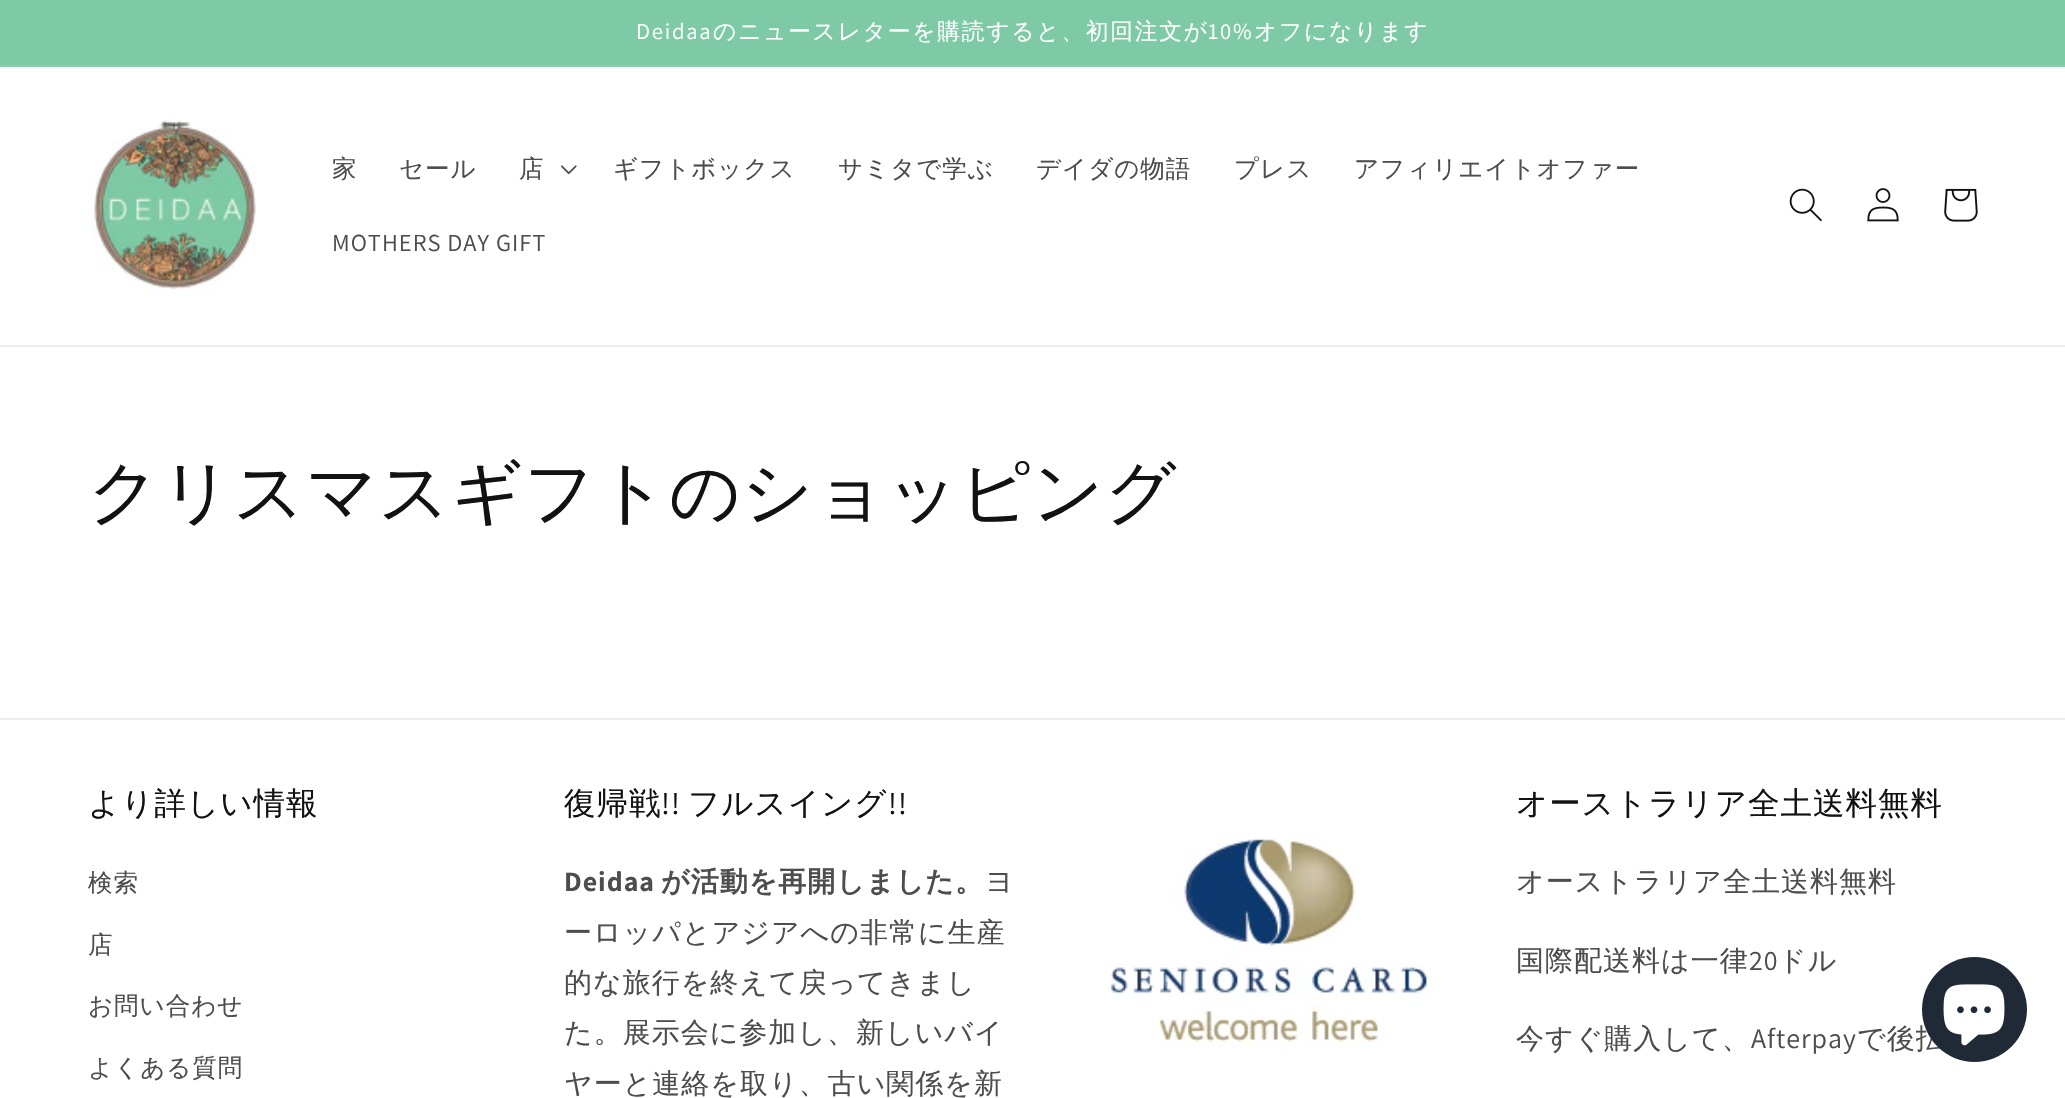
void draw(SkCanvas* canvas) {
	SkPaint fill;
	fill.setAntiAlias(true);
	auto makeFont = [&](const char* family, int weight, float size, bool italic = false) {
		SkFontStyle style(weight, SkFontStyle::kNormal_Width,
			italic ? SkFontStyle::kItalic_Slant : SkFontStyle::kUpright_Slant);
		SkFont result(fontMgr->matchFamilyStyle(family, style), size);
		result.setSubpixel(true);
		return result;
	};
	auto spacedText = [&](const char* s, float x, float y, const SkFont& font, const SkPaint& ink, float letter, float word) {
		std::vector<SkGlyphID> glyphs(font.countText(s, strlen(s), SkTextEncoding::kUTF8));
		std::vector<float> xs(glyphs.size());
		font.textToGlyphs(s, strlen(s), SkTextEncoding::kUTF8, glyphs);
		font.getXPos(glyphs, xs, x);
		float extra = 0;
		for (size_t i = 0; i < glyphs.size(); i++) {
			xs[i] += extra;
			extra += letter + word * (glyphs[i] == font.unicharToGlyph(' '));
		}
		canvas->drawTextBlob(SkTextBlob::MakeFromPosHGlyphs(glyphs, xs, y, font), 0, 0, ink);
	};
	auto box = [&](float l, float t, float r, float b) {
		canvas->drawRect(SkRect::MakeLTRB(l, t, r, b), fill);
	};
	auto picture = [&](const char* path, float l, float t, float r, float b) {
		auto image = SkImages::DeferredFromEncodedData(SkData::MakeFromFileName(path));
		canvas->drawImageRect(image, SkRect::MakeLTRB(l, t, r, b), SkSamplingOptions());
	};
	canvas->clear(0xFFFFFFFF);
	fill.setColor(0xFF7EC9A6);
	box(0, 0, 2065, 65);
	fill.setColor(0xFF88CDAD);
	box(0, 65, 2065, 67);
	fill.setColor(0xFFECECEC);
	box(0, 345, 2065, 347);
	picture("image0.png", 88, 120, 256, 295);
	picture("image1.png", 560, 165, 577, 175);
	picture("image2.png", 1789, 188, 1822, 222);
	picture("image3.png", 1867, 188, 1899, 222);
	picture("image4.png", 1944, 188, 1978, 222);
	box(0, 718, 2065, 720);
	picture("image5.png", 1110, 837, 1428, 1048);
	auto font1 = makeFont("Assistant", 400, 22.75f);
	fill.setColor(0xFFFFFFFF);
	spacedText("Deidaa", 636, 39, font1, fill, 1.75f, 0);
	auto font2 = makeFont("WenQuanYi Zen Hei", 500, 22.75f);
	spacedText("のニュースレターを購読すると、初回注文が", 713, 39, font2, fill, 1.75f, 0);
	spacedText("10%", 1208, 39, font1, fill, 1.75f, 0);
	spacedText("オフになります", 1254, 39, font2, fill, 1.75f, 0);
	auto font3 = makeFont("WenQuanYi Zen Hei", 500, 24.5f);
	fill.setColor(0xFF4D4D4D);
	spacedText("家", 332, 177, font3, fill, 1, 0);
	spacedText("セール", 399, 177, font3, fill, 1, 0);
	spacedText("店", 519, 177, font3, fill, 1, 0);
	spacedText("ギフトボックス", 613, 177, font3, fill, 1, 0);
	spacedText("サミタで学ぶ", 838, 177, font3, fill, 1, 0);
	spacedText("デイダの物語", 1036, 177, font3, fill, 1, 0);
	spacedText("プレス", 1234, 177, font3, fill, 1, 0);
	spacedText("アフィリエイトオファー", 1354, 177, font3, fill, 1, 0);
	auto font4 = makeFont("Assistant", 400, 24.5f);
	spacedText("MOTHERS DAY GIFT", 332, 251, font4, fill, 1, 0);
	auto font5 = makeFont("WenQuanYi Zen Hei", 500, 70);
	fill.setColor(0xFF121212);
	spacedText("クリスマスギフトのショッピング", 88, 516, font5, fill, 1, 0);
	auto font6 = makeFont("WenQuanYi Zen Hei", 500, 31.5f);
	spacedText("より詳しい情報", 88, 814, font6, fill, 1, 0);
	fill.setColor(0xFF4D4D4D);
	spacedText("検索", 88, 891, font3, fill, 1, 0);
	spacedText("店", 88, 953, font3, fill, 1, 0);
	spacedText("お問い合わせ", 88, 1014, font3, fill, 1, 0);
	spacedText("よくある質問", 88, 1076, font3, fill, 1, 0);
	fill.setColor(0xFF121212);
	spacedText("復帰戦", 564, 814, font6, fill, 1, 0);
	auto font7 = makeFont("Assistant", 400, 31.5f);
	spacedText("!!", 661, 814, font7, fill, 1, 0);
	spacedText("フルスイング", 688, 814, font6, fill, 1, 0);
	spacedText("!!", 888, 814, font7, fill, 1, 0);
	auto font8 = makeFont("Assistant", 700, 28);
	fill.setColor(0xFF4D4D4D);
	spacedText("Deidaa", 564, 891, font8, fill, 1, 0);
	auto font9 = makeFont("WenQuanYi Zen Hei", 700, 28);
	spacedText("が活動を再開しました。", 661, 891, font9, fill, 1, 0);
	auto font10 = makeFont("WenQuanYi Zen Hei", 500, 28);
	spacedText("ヨ", 985, 891, font10, fill, 1, 0);
	spacedText("ーロッパとアジアへの非常に生産", 564, 942, font10, fill, 1, 0);
	spacedText("的な旅行を終えて戻ってきまし", 564, 992, font10, fill, 1, 0);
	spacedText("た。展示会に参加し、新しいバイ", 564, 1042, font10, fill, 1, 0);
	spacedText("ヤーと連絡を取り、古い関係を新", 564, 1093, font10, fill, 1, 0);
	fill.setColor(0xFF121212);
	spacedText("オーストラリア全土送料無料", 1516, 814, font6, fill, 1, 0);
	fill.setColor(0xFF4D4D4D);
	spacedText("オーストラリア全土送料無料", 1516, 891, font10, fill, 1, 0);
	spacedText("国際配送料は一律", 1516, 970, font10, fill, 1, 0);
	auto font11 = makeFont("Assistant", 400, 28);
	spacedText("20", 1749, 970, font11, fill, 1, 0);
	spacedText("ドル", 1778, 970, font10, fill, 1, 0);
	spacedText("今すぐ購入して、", 1516, 1048, font10, fill, 1, 0);
	spacedText("Afterpay", 1751, 1048, font11, fill, 1, 0);
	spacedText("で後払", 1857, 1048, font10, fill, 1, 0);
	fill.setColor(0xFF202A36);
	canvas->drawCircle(1974.5f, 1009.5f, 52.5f, fill);
	picture("image6.png", 1943, 984, 2005, 1046);
}
